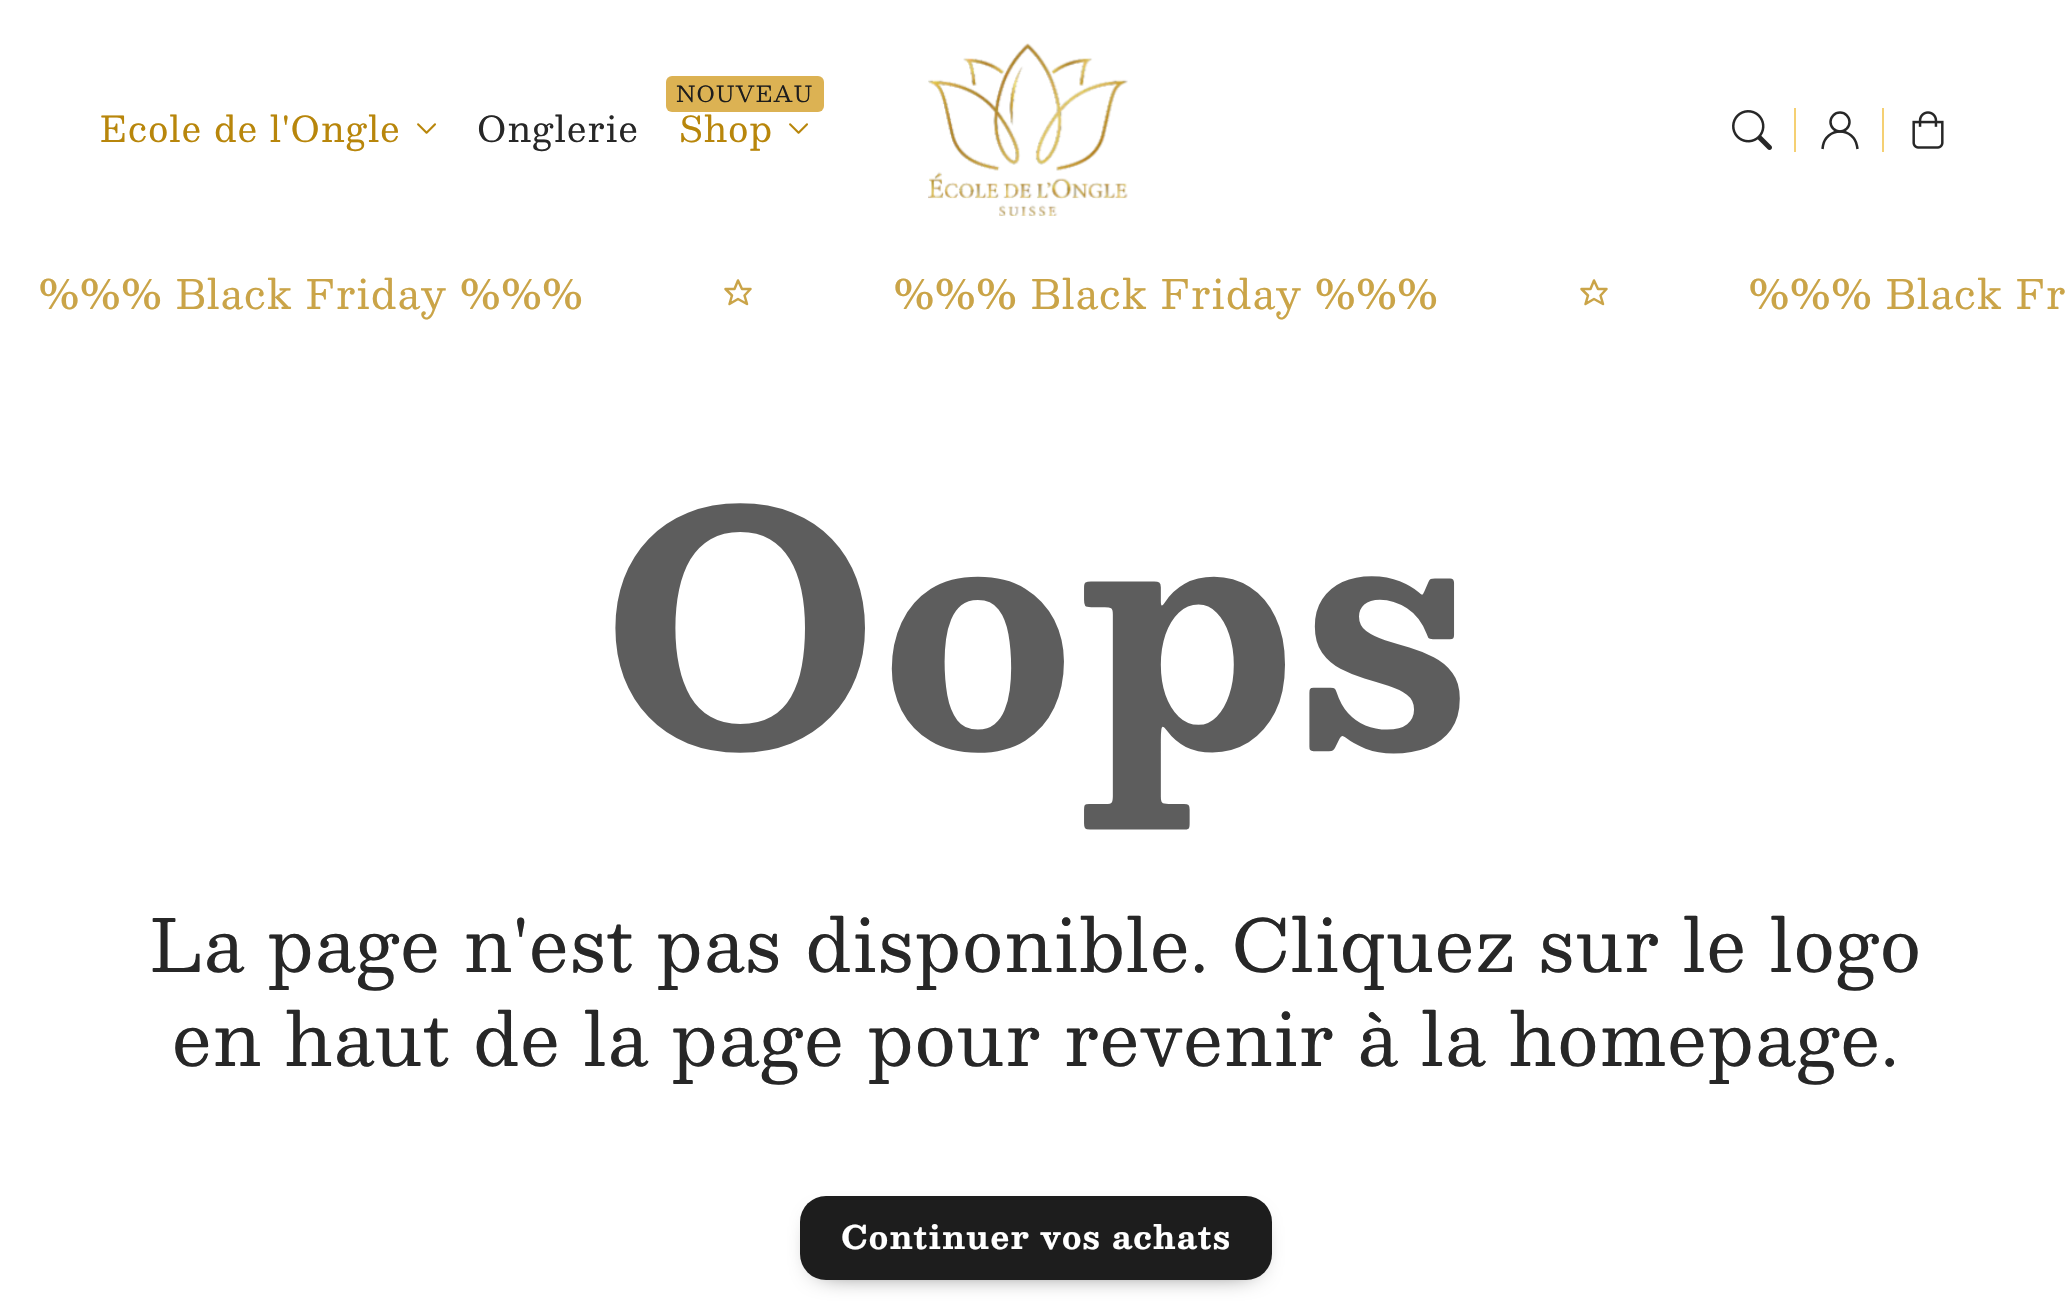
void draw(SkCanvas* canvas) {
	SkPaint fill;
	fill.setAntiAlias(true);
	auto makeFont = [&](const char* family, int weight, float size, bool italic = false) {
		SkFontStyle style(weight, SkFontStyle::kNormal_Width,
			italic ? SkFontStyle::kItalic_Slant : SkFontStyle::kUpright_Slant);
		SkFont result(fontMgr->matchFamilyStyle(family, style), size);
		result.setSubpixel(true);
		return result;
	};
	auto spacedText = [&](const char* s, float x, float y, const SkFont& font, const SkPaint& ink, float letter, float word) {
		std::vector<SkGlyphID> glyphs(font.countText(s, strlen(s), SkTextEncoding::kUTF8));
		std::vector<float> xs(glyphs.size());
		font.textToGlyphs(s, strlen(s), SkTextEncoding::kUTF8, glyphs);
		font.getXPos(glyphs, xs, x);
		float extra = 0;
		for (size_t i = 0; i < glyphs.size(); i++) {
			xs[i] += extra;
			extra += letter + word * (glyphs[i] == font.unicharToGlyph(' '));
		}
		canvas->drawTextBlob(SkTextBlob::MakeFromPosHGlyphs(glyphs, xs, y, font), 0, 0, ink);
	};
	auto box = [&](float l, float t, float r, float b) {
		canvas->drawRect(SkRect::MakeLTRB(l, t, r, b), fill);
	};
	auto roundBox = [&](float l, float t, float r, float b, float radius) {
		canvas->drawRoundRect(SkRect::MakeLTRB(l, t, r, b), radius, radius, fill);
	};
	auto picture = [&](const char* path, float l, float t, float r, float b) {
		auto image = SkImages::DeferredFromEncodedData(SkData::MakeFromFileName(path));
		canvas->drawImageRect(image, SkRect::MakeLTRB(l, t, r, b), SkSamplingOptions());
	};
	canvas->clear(0xFFFFFFFF);
	picture("image0.png", 417, 123, 436, 134);
	fill.setColor(0xFFDCB253);
	roundBox(666, 76, 824, 112, 6);
	picture("image0.png", 789, 123, 808, 134);
	picture("image1.png", 928, 43, 1128, 216);
	picture("image2.png", 1732, 110, 1772, 150);
	fill.setColor(0xFFF5D073);
	box(1794, 108, 1796, 152);
	fill.setStyle(SkPaint::kStroke_Style);
	fill.setStrokeWidth(2.5f);
	fill.setColor(0xFF272727);
	canvas->drawCircle(1840, 122, 9.5f, fill);
	canvas->drawPath(SkPathBuilder().moveTo(1822.5f, 149).lineTo(1823, 145.5f).cubicTo(1824.5f, 137.5f, 1831.5f, 131.5f, 1840, 131.5f).cubicTo(1848.5f, 131.5f, 1855.5f, 137.5f, 1857, 146).lineTo(1857.5f, 149).detach(), fill);
	fill.setStyle(SkPaint::kFill_Style);
	fill.setColor(0xFFF5D073);
	box(1882, 108, 1884, 152);
	picture("image3.png", 1912, 111, 1944, 149);
	fill.setStyle(SkPaint::kStroke_Style);
	fill.setStrokeJoin(SkPaint::kRound_Join);
	fill.setColor(0xFFCAA448);
	canvas->drawPath(SkPathBuilder().moveTo(738, 280.5f).lineTo(742, 289).lineTo(750.5f, 289).lineTo(744.5f, 295.5f).lineTo(747, 304).lineTo(738, 299).lineTo(729.5f, 304).lineTo(732, 295.5f).lineTo(725.5f, 289).lineTo(734.5f, 289).close().detach(), fill);
	canvas->drawPath(SkPathBuilder().moveTo(1594, 280.5f).lineTo(1598, 289).lineTo(1606.5f, 289).lineTo(1600.5f, 295.5f).lineTo(1603, 304).lineTo(1594, 299).lineTo(1585.5f, 304).lineTo(1588, 295.5f).lineTo(1581.5f, 289).lineTo(1590.5f, 289).close().detach(), fill);
	fill.setStyle(SkPaint::kFill_Style);
	fill.setColor(0xFF000000);
	fill.setMaskFilter(SkMaskFilter::MakeBlur(kNormal_SkBlurStyle, 14));
	canvas->drawRoundRect(SkRect::MakeLTRB(820, 1224, 1252, 1268), 6, 6, fill);
	fill.setMaskFilter(nullptr);
	fill.setColor(0xFF1D1D1D);
	roundBox(800, 1196, 1272, 1280, 26);
	auto font1 = makeFont("Besley", 400, 35.25f);
	fill.setColor(0xFFB8860B);
	spacedText("Ecole de l'Ongle", 100, 142, font1, fill, 1.2f, 0);
	fill.setColor(0xFF272727);
	spacedText("Onglerie", 477, 142, font1, fill, 1.2f, 0);
	auto font2 = makeFont("Besley", 400, 22);
	fill.setColor(0xFF1D1D1D);
	spacedText("NOUVEAU", 676, 102, font2, fill, 1.2f, 0);
	fill.setColor(0xFFB8860B);
	spacedText("Shop", 679, 142, font1, fill, 1.2f, 0);
	auto font3 = makeFont("Besley", 400, 40);
	fill.setColor(0xFFCAA448);
	spacedText("%%% Black Friday %%%", 39, 309, font3, fill, 1.2f, 0);
	spacedText("%%% Black Friday %%%", 894, 309, font3, fill, 1.2f, 0);
	spacedText("%%% Black Fr", 1749, 309, font3, fill, 1.2f, 0);
	auto font4 = makeFont("Besley", 700, 320);
	fill.setColor(0xFF5D5D5D);
	spacedText("Oops", 601, 748, font4, fill, 1.2f, 0);
	auto font5 = makeFont("Besley", 400, 72);
	fill.setColor(0xFF272727);
	spacedText("La page n'est pas disponible. Cliquez sur le logo", 150, 972, font5, fill, 1.2f, 0);
	spacedText("en haut de la page pour revenir à la homepage.", 172, 1066, font5, fill, 1.2f, 0);
	auto font6 = makeFont("Besley", 700, 32);
	fill.setColor(0xFFFFFFFF);
	spacedText("Continuer vos achats", 841, 1249, font6, fill, 1.2f, 0);
}
